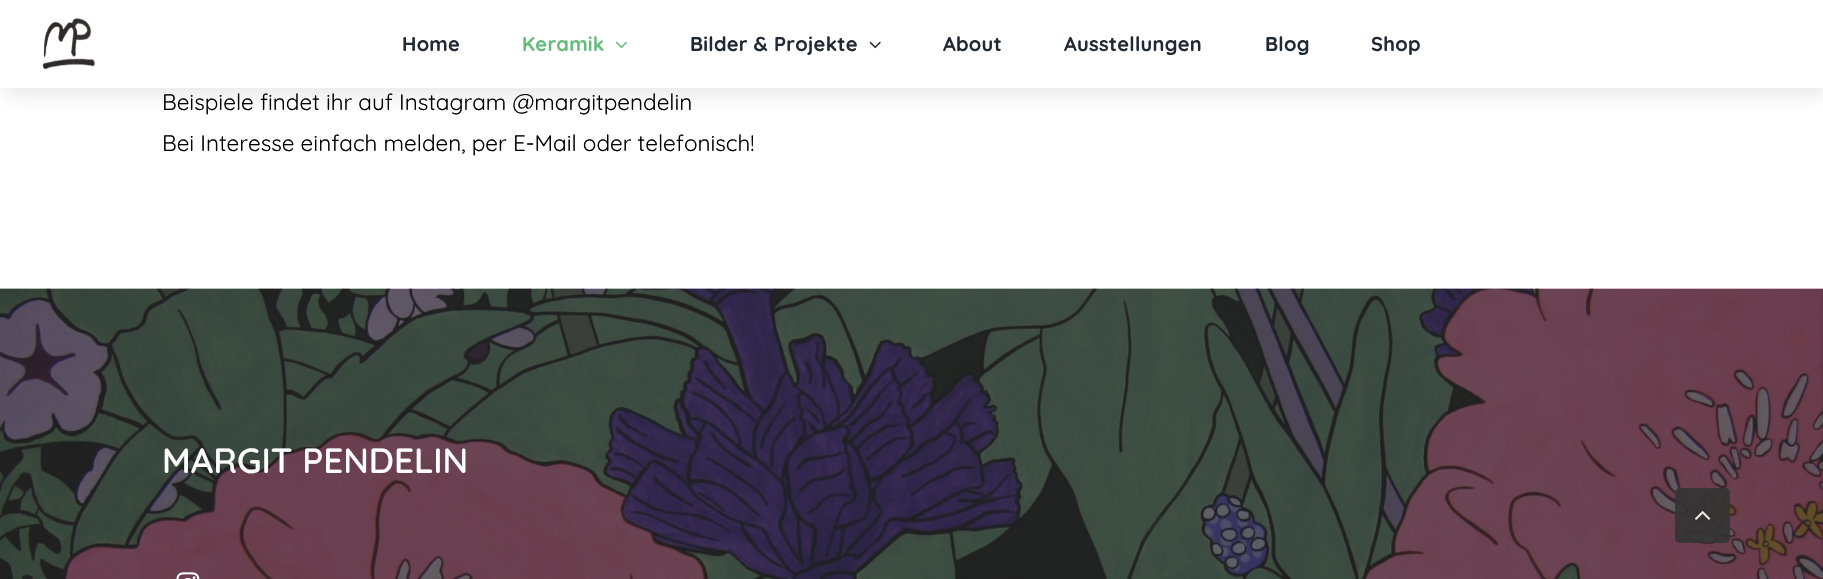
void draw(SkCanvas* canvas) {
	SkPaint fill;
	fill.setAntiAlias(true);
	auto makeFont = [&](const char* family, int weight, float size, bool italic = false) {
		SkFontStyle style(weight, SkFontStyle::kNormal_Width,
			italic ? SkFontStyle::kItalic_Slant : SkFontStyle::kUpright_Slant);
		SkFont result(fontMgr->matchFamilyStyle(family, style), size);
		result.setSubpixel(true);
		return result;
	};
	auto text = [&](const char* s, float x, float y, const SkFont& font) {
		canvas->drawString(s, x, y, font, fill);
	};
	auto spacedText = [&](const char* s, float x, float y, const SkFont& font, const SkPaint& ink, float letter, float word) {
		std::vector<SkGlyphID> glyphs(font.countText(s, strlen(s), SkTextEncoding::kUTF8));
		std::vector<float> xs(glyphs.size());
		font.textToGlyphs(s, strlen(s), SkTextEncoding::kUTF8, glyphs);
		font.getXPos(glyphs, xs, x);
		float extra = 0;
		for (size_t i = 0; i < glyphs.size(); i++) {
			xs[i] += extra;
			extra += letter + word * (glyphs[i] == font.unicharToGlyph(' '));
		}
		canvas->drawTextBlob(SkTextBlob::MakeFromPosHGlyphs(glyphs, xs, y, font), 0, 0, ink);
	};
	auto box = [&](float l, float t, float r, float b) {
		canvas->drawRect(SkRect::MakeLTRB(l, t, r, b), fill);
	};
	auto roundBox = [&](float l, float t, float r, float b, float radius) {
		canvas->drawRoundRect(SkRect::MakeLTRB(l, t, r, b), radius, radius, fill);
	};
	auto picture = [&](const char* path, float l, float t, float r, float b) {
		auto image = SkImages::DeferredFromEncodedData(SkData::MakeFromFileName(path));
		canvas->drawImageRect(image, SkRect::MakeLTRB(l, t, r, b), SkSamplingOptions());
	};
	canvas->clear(0xFFFFFFFF);
	fill.setColor(0x1A181818);
	fill.setMaskFilter(SkMaskFilter::MakeBlur(kNormal_SkBlurStyle, 10));
	canvas->drawRect(SkRect::MakeLTRB(4, 8, 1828, 95), fill);
	fill.setMaskFilter(nullptr);
	fill.setColor(0xFFFFFFFF);
	box(0, 0, 1823, 88);
	picture("image0.png", 42, 18, 96, 70);
	picture("image1.png", 615, 41, 627, 49);
	picture("image2.png", 869, 41, 881, 49);
	picture("image3.png", 0, 288, 1823, 579);
	picture("image4.png", 176, 572, 200, 579);
	fill.setColor(0xE6333333);
	roundBox(1675, 488, 1730, 543, 5);
	picture("image5.png", 1695, 511, 1711, 520);
	auto font1 = makeFont("Quicksand", 700, 20);
	fill.setColor(0xFF212934);
	spacedText("Home", 402, 51, font1, fill, 0.25f, 0);
	fill.setColor(0xFF65BC7B);
	spacedText("Keramik", 522, 51, font1, fill, 0.25f, 0);
	fill.setColor(0xFF212934);
	spacedText("Bilder & Projekte", 690, 51, font1, fill, 0.25f, 0);
	spacedText("About", 943, 51, font1, fill, 0.25f, 0);
	spacedText("Ausstellungen", 1064, 51, font1, fill, 0.25f, 0);
	spacedText("Blog", 1265, 51, font1, fill, 0.25f, 0);
	spacedText("Shop", 1371, 51, font1, fill, 0.25f, 0);
	auto font2 = makeFont("Quicksand", 400, 22.5f);
	fill.setColor(0xFF000000);
	text("Beispiele findet ihr auf Instagram @margitpendelin", 162, 110, font2);
	text("Bei Interesse einfach melden, per E-Mail oder telefonisch!", 162, 151, font2);
	auto font3 = makeFont("Quicksand", 600, 35);
	fill.setColor(0xFFFFFFFF);
	text("MARGIT PENDELIN", 162, 473, font3);
}
